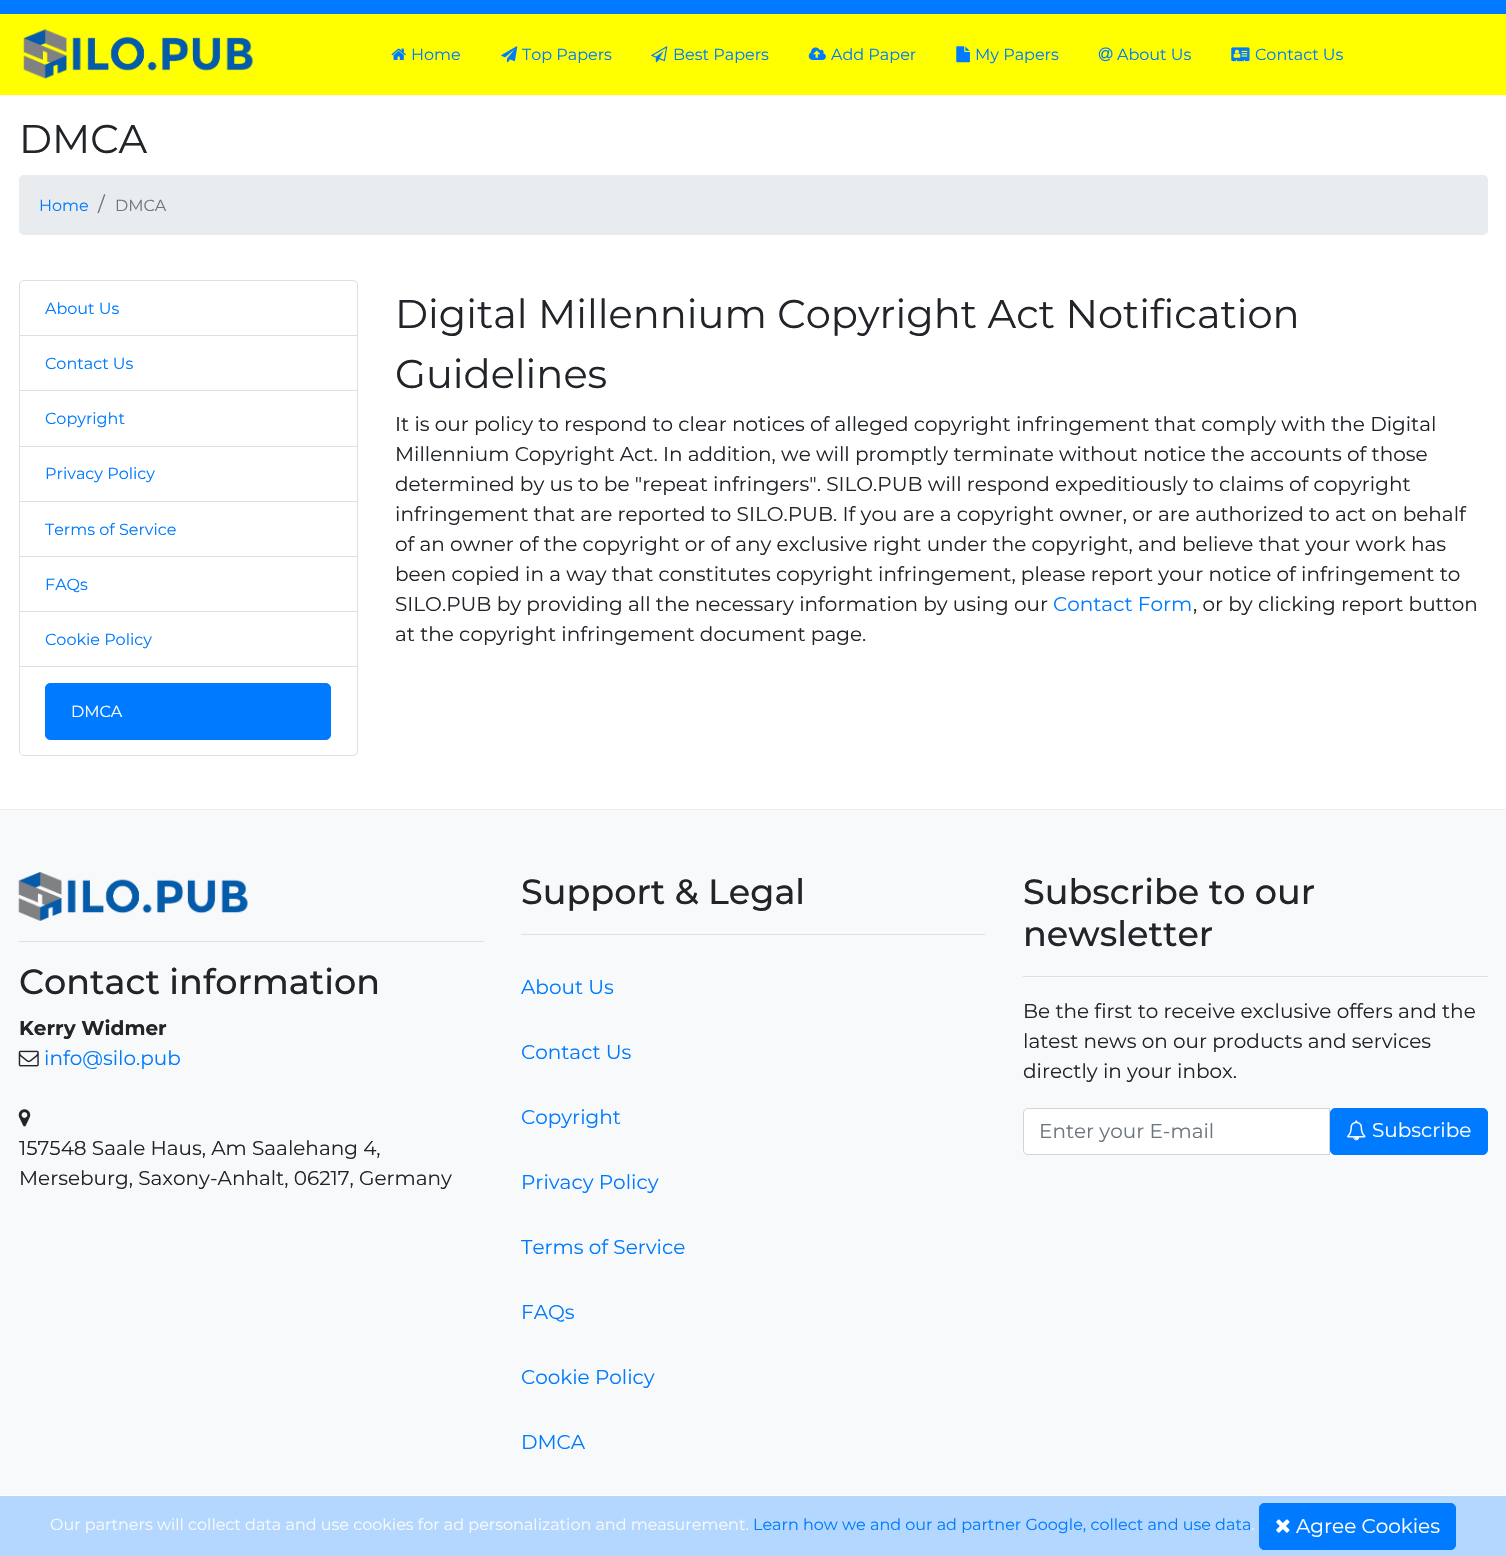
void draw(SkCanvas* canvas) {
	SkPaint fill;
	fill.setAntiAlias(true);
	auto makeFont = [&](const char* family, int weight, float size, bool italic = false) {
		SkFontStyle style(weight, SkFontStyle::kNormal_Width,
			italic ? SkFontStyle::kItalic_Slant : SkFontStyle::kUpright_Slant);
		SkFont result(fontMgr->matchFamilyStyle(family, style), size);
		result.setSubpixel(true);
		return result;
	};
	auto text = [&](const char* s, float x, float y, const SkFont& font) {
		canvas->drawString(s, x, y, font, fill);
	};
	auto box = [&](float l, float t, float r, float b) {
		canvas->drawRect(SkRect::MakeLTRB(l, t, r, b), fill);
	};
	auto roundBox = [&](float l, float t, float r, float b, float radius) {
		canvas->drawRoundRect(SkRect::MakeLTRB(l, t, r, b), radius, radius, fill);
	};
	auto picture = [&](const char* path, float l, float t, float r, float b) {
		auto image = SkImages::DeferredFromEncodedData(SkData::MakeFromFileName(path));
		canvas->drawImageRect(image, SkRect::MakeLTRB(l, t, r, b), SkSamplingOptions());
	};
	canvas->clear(0xFFFFFFFF);
	fill.setColor(0xFF007BFF);
	box(0, 0, 1506, 14);
	fill.setColor(0xFFFFFF00);
	box(0, 14, 1506, 95);
	picture("image0.png", 23, 29, 253, 79);
	picture("image1.png", 391, 48, 406, 60);
	picture("image2.png", 501, 46, 518, 63);
	picture("image3.png", 651, 46, 668, 63);
	picture("image4.png", 808, 47, 826, 60);
	picture("image5.png", 956, 46, 970, 63);
	picture("image6.png", 1098, 47, 1113, 62);
	picture("image7.png", 1231, 47, 1250, 62);
	fill.setColor(0xFFE9ECEF);
	roundBox(19, 175, 1488, 235, 5);
	fill.setStyle(SkPaint::kStroke_Style);
	fill.setStrokeWidth(1);
	fill.setColor(0xFFDFDFDF);
	canvas->drawPath(SkPathBuilder().moveTo(24, 280.5f).lineTo(353, 280.5f).cubicTo(355.5f, 280.5f, 357.5f, 282.5f, 357.5f, 285).lineTo(357.5f, 335.5f).lineTo(19.5f, 335.5f).lineTo(19.5f, 285).cubicTo(19.5f, 282.5f, 21.5f, 280.5f, 24, 280.5f).close().detach(), fill);
	canvas->drawRect(SkRect::MakeLTRB(19.5f, 335.5f, 357.5f, 390.5f), fill);
	canvas->drawRect(SkRect::MakeLTRB(19.5f, 390.5f, 357.5f, 447.5f), fill);
	fill.setStyle(SkPaint::kFill_Style);
	fill.setColor(0xFFFFFFFF);
	box(20, 447, 357, 448);
	fill.setStyle(SkPaint::kStroke_Style);
	fill.setColor(0xFFDFDFDF);
	canvas->drawRect(SkRect::MakeLTRB(19.5f, 446.5f, 357.5f, 502.5f), fill);
	fill.setStyle(SkPaint::kFill_Style);
	fill.setColor(0xFFFFFFFF);
	box(20, 502, 357, 503);
	fill.setStyle(SkPaint::kStroke_Style);
	fill.setColor(0xFFDFDFDF);
	canvas->drawRect(SkRect::MakeLTRB(19.5f, 501.5f, 357.5f, 557.5f), fill);
	fill.setStyle(SkPaint::kFill_Style);
	fill.setColor(0xFFFFFFFF);
	box(20, 557, 357, 558);
	fill.setStyle(SkPaint::kStroke_Style);
	fill.setColor(0xFFDFDFDF);
	canvas->drawRect(SkRect::MakeLTRB(19.5f, 556.5f, 357.5f, 612.5f), fill);
	fill.setStyle(SkPaint::kFill_Style);
	fill.setColor(0xFFFFFFFF);
	box(20, 612, 357, 613);
	fill.setStyle(SkPaint::kStroke_Style);
	fill.setColor(0xFFDFDFDF);
	canvas->drawRect(SkRect::MakeLTRB(19.5f, 611.5f, 357.5f, 667.5f), fill);
	fill.setStyle(SkPaint::kFill_Style);
	fill.setColor(0xFFFFFFFF);
	canvas->drawPath(SkPathBuilder().moveTo(19.5f, 666.5f).lineTo(357.5f, 666.5f).lineTo(357.5f, 751).cubicTo(357.5f, 753.5f, 355.5f, 755.5f, 353, 755.5f).lineTo(24, 755.5f).cubicTo(21.5f, 755.5f, 19.5f, 753.5f, 19.5f, 751).close().detach(), fill);
	fill.setStyle(SkPaint::kStroke_Style);
	fill.setColor(0xFFDFDFDF);
	canvas->drawPath(SkPathBuilder().moveTo(19.5f, 666.5f).lineTo(357.5f, 666.5f).lineTo(357.5f, 751).cubicTo(357.5f, 753.5f, 355.5f, 755.5f, 353, 755.5f).lineTo(24, 755.5f).cubicTo(21.5f, 755.5f, 19.5f, 753.5f, 19.5f, 751).close().detach(), fill);
	fill.setStyle(SkPaint::kFill_Style);
	fill.setColor(0xFF007BFF);
	canvas->drawRoundRect(SkRect::MakeLTRB(45.5f, 683.5f, 330.5f, 739.5f), 4.5f, 4.5f, fill);
	fill.setStyle(SkPaint::kStroke_Style);
	canvas->drawRoundRect(SkRect::MakeLTRB(45.5f, 683.5f, 330.5f, 739.5f), 4.5f, 4.5f, fill);
	fill.setStyle(SkPaint::kFill_Style);
	fill.setColor(0xFFF8F9FA);
	box(0, 810, 1506, 1495);
	fill.setColor(0xFFECEDEE);
	box(0, 809, 1506, 810);
	picture("image8.png", 18, 872, 248, 921);
	fill.setColor(0xFFDFE0E1);
	box(19, 941, 484, 942);
	picture("image9.png", 18, 1050, 39, 1067);
	picture("image10.png", 18, 1109, 31, 1127);
	box(521, 934, 985, 935);
	box(1023, 976, 1488, 977);
	fill.setColor(0xFFFFFFFF);
	canvas->drawPath(SkPathBuilder().moveTo(1028, 1108.5f).lineTo(1329.5f, 1108.5f).lineTo(1329.5f, 1154.5f).lineTo(1028, 1154.5f).cubicTo(1025.5f, 1154.5f, 1023.5f, 1152.5f, 1023.5f, 1150).lineTo(1023.5f, 1113).cubicTo(1023.5f, 1110.5f, 1025.5f, 1108.5f, 1028, 1108.5f).close().detach(), fill);
	fill.setStyle(SkPaint::kStroke_Style);
	fill.setColor(0xFFCED4DA);
	canvas->drawPath(SkPathBuilder().moveTo(1028, 1108.5f).lineTo(1329.5f, 1108.5f).lineTo(1329.5f, 1154.5f).lineTo(1028, 1154.5f).cubicTo(1025.5f, 1154.5f, 1023.5f, 1152.5f, 1023.5f, 1150).lineTo(1023.5f, 1113).cubicTo(1023.5f, 1110.5f, 1025.5f, 1108.5f, 1028, 1108.5f).close().detach(), fill);
	fill.setStyle(SkPaint::kFill_Style);
	fill.setColor(0xFF007BFF);
	canvas->drawRoundRect(SkRect::MakeLTRB(1330.5f, 1108.5f, 1487.5f, 1154.5f), 4.5f, 4.5f, fill);
	fill.setStyle(SkPaint::kStroke_Style);
	canvas->drawRoundRect(SkRect::MakeLTRB(1330.5f, 1108.5f, 1487.5f, 1154.5f), 4.5f, 4.5f, fill);
	picture("image11.png", 1347, 1120, 1366, 1141);
	fill.setStyle(SkPaint::kFill_Style);
	fill.setColor(0xFFB3D7FF);
	box(0, 1496, 1506, 1556);
	fill.setColor(0xFF007BFF);
	canvas->drawRoundRect(SkRect::MakeLTRB(1259.5f, 1503.5f, 1455.5f, 1549.5f), 4.5f, 4.5f, fill);
	fill.setStyle(SkPaint::kStroke_Style);
	canvas->drawRoundRect(SkRect::MakeLTRB(1259.5f, 1503.5f, 1455.5f, 1549.5f), 4.5f, 4.5f, fill);
	picture("image12.png", 1276, 1519, 1290, 1533);
	auto font1 = makeFont("Montserrat", 400, 16);
	fill.setStyle(SkPaint::kFill_Style);
	text("Home", 411, 60, font1);
	text("Top Papers", 522, 60, font1);
	text("Best Papers", 673, 60, font1);
	text("Add Paper", 831, 60, font1);
	text("My Papers", 975, 60, font1);
	text("About Us", 1117, 60, font1);
	text("Contact Us", 1255, 60, font1);
	auto font2 = makeFont("Montserrat", 400, 40);
	fill.setColor(0xFF212529);
	text("DMCA", 19, 153, font2);
	fill.setColor(0xFF007BFF);
	text("Home", 39, 211, font1);
	auto font3 = makeFont("Montserrat", 400, 20);
	fill.setColor(0xFF6C757D);
	text("/", 98, 211, font3);
	text("DMCA", 115, 211, font1);
	fill.setColor(0xFF007BFF);
	text("About Us", 45, 314, font1);
	text("Contact Us", 45, 369, font1);
	text("Copyright", 45, 424, font1);
	text("Privacy Policy", 45, 479, font1);
	text("Terms of Service", 45, 535, font1);
	text("FAQs", 45, 590, font1);
	text("Cookie Policy", 45, 645, font1);
	fill.setColor(0xFFFFFFFF);
	text("DMCA", 71, 717, font1);
	fill.setColor(0xFF212529);
	text("Digital Millennium Copyright Act Notification", 395, 328, font2);
	text("Guidelines", 395, 388, font2);
	text("It is our policy to respond to clear notices of alleged copyright infringement that comply with the Digital", 395, 431, font3);
	text("Millennium Copyright Act. In addition, we will promptly terminate without notice the accounts of those", 395, 461, font3);
	text("determined by us to be \"repeat infringers\". SILO.PUB will respond expeditiously to claims of copyright", 395, 491, font3);
	text("infringement that are reported to SILO.PUB. If you are a copyright owner, or are authorized to act on behalf", 395, 521, font3);
	text("of an owner of the copyright or of any exclusive right under the copyright, and believe that your work has", 395, 551, font3);
	text("been copied in a way that constitutes copyright infringement, please report your notice of infringement to", 395, 581, font3);
	text("SILO.PUB by providing all the necessary information by using our", 395, 611, font3);
	fill.setColor(0xFF007BFF);
	text("Contact Form", 1053, 611, font3);
	fill.setColor(0xFF212529);
	text(", or by clicking report button", 1193, 611, font3);
	text("at the copyright infringement document page.", 395, 641, font3);
	auto font4 = makeFont("Montserrat", 500, 35);
	text("Contact information", 19, 994, font4);
	auto font5 = makeFont("Montserrat", 700, 20);
	text("Kerry Widmer", 19, 1035, font5);
	fill.setColor(0xFF007BFF);
	text("info@silo.pub", 44, 1065, font3);
	fill.setColor(0xFF212529);
	text("157548 Saale Haus, Am Saalehang 4,", 19, 1155, font3);
	text("Merseburg, Saxony-Anhalt, 06217, Germany", 19, 1185, font3);
	text("Support & Legal", 521, 904, font4);
	fill.setColor(0xFF007BFF);
	text("About Us", 521, 994, font3);
	text("Contact Us", 521, 1059, font3);
	text("Copyright", 521, 1124, font3);
	text("Privacy Policy", 521, 1189, font3);
	text("Terms of Service", 521, 1254, font3);
	text("FAQs", 521, 1319, font3);
	text("Cookie Policy", 521, 1384, font3);
	text("DMCA", 521, 1449, font3);
	fill.setColor(0xFF212529);
	text("Subscribe to our", 1023, 904, font4);
	text("newsletter", 1023, 946, font4);
	text("Be the first to receive exclusive offers and the", 1023, 1018, font3);
	text("latest news on our products and services", 1023, 1048, font3);
	text("directly in your inbox.", 1023, 1078, font3);
	fill.setColor(0xFF6C757D);
	text("Enter your E-mail", 1039, 1138, font3);
	fill.setColor(0xFFFFFFFF);
	text("Subscribe", 1372, 1137, font3);
	fill.setColor(0xFFF8F9FA);
	text("Our partners will collect data and use cookies for ad personalization and measurement.", 50, 1530, font1);
	fill.setColor(0xFF007BFF);
	text("Learn how we and our ad partner Google, collect and use data", 753, 1530, font1);
	fill.setColor(0xFFF8F9FA);
	text(".", 1251, 1530, font1);
	fill.setColor(0xFFFFFFFF);
	text("Agree Cookies", 1296, 1533, font3);
}
